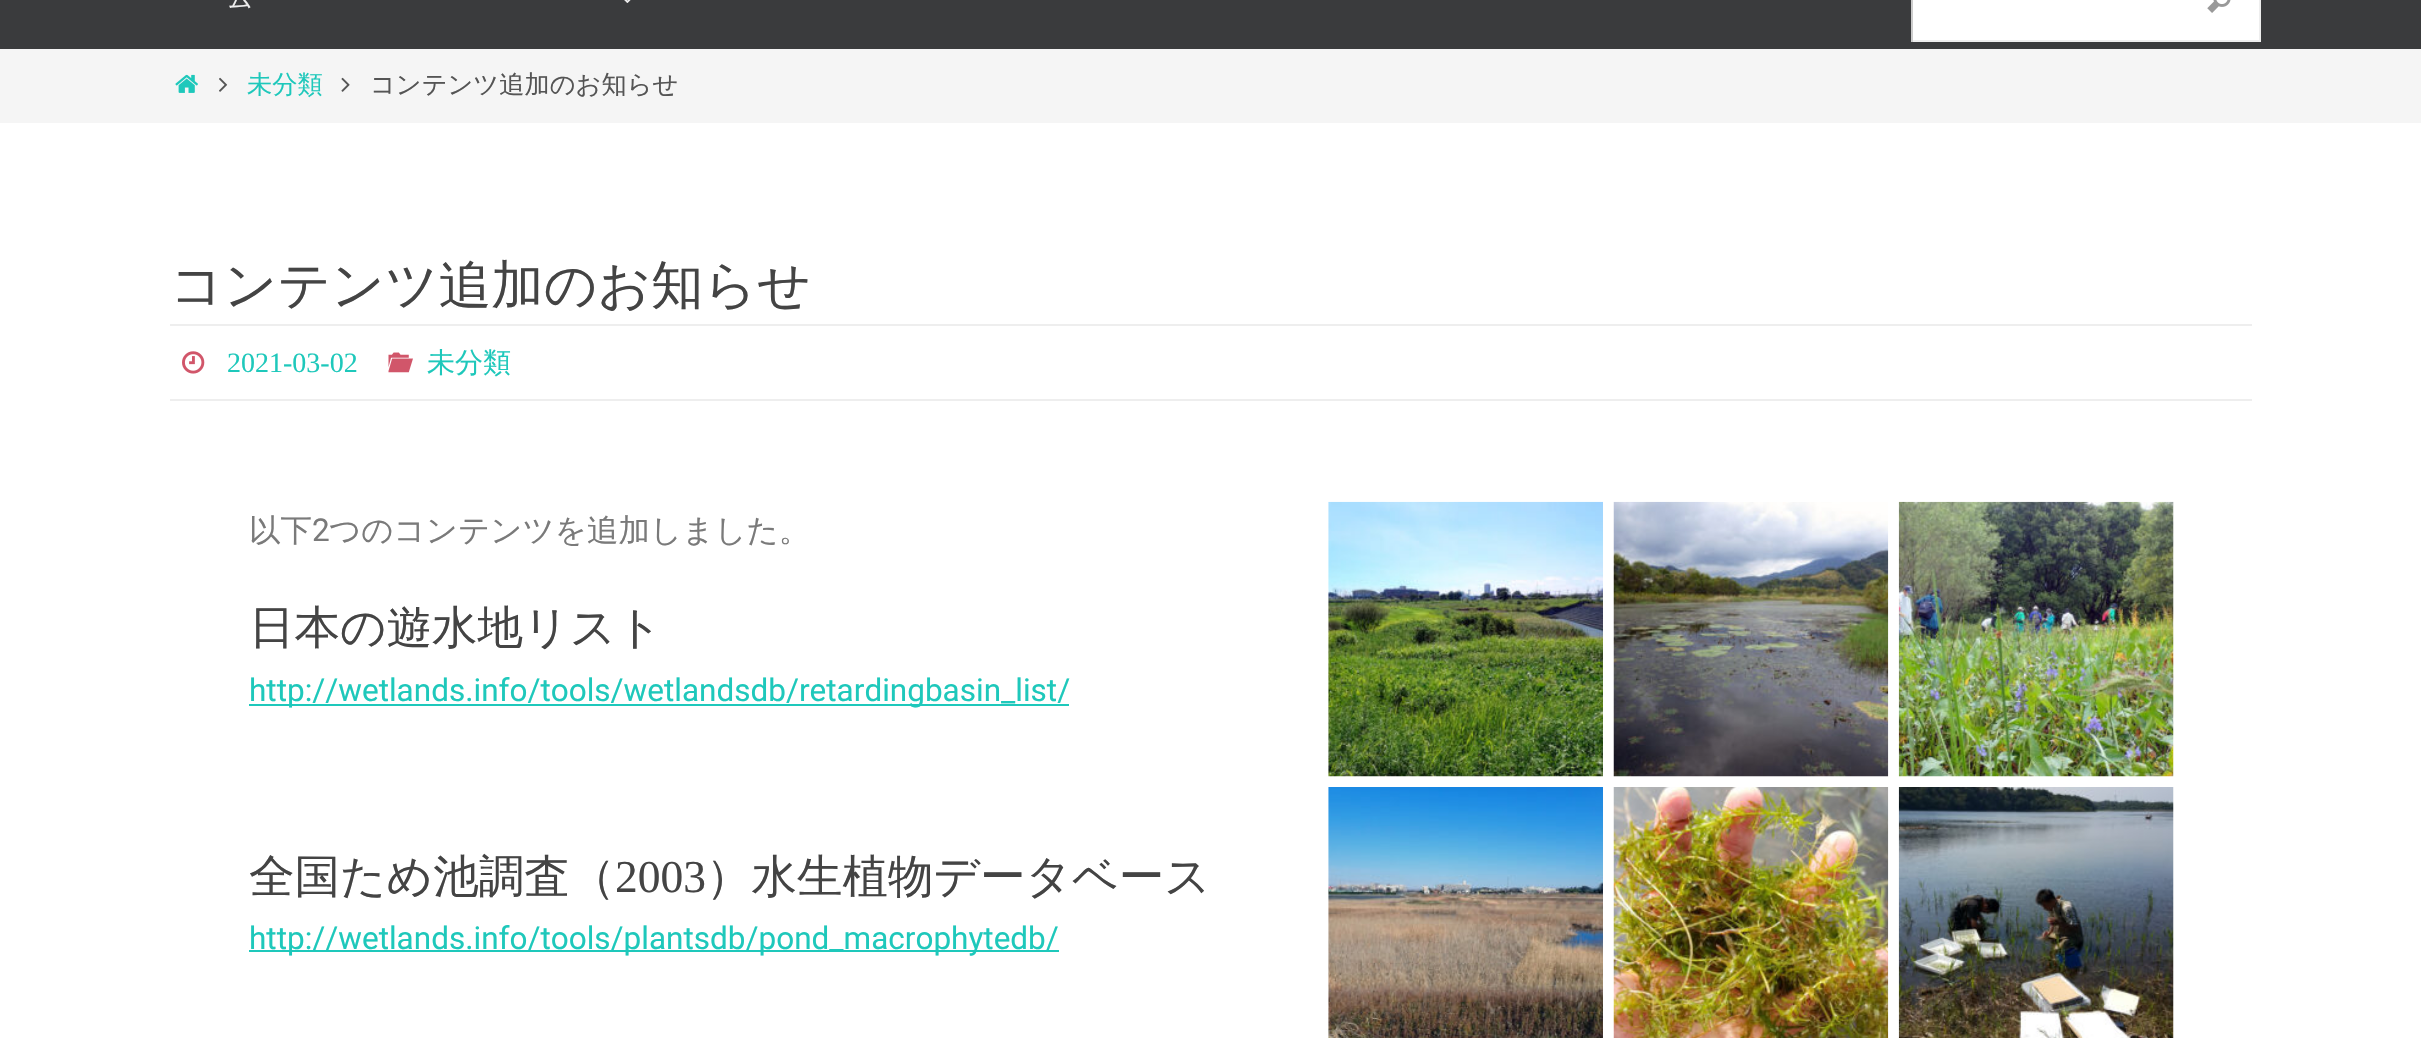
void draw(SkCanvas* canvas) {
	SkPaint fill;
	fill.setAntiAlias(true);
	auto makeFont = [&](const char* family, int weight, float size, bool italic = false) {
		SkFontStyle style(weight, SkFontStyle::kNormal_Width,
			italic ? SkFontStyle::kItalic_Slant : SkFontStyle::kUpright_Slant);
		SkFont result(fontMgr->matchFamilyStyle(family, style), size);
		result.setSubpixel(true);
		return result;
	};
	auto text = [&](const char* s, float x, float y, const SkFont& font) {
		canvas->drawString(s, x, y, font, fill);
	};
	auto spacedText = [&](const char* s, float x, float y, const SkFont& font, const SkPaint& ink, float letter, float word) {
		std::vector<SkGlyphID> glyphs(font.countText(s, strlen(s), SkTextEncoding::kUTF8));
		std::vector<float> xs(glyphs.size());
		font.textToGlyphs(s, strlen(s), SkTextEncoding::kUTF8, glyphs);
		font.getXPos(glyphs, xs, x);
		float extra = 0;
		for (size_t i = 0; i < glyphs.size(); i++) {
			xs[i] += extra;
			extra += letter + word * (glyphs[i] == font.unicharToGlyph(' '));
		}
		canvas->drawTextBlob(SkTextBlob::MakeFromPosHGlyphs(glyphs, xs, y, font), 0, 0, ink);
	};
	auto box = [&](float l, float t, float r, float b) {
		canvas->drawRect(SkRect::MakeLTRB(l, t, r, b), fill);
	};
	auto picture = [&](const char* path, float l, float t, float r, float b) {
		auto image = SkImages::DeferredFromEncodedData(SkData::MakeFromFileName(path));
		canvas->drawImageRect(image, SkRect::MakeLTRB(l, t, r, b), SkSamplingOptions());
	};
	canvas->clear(0xFFFFFFFF);
	fill.setColor(0xFF3A3B3D);
	box(0, 0, 2421, 49);
	picture("image0.png", 624, 0, 631, 3);
	fill.setColor(0xFFFFFFFF);
	box(1913, 0, 2259, 40);
	fill.setColor(0xFFEEEEEE);
	box(2259, 0, 2261, 42);
	box(1911, 40, 2261, 42);
	fill.setColor(0xFFCCCCCC);
	box(1911, 0, 1913, 42);
	picture("image1.png", 2207, 0, 2231, 13);
	fill.setColor(0xFFF5F5F5);
	box(0, 49, 2421, 123);
	picture("image2.png", 175, 74, 198, 93);
	picture("image3.png", 219, 77, 228, 92);
	picture("image4.png", 341, 77, 350, 92);
	fill.setColor(0xFFEEEEEE);
	box(170, 324, 2252, 326);
	box(170, 399, 2252, 401);
	picture("image5.png", 182, 351, 205, 374);
	picture("image6.png", 388, 352, 413, 373);
	fill.setColor(0xFF1EC8BB);
	box(249, 704, 1069, 706);
	box(249, 950, 1059, 952);
	picture("image7.png", 1328, 501, 1603, 777);
	picture("image8.png", 1613, 501, 1889, 777);
	picture("image9.png", 1898, 501, 2174, 777);
	picture("image10.png", 1328, 787, 1603, 1038);
	picture("image11.png", 1613, 787, 1889, 1038);
	picture("image12.png", 1898, 787, 2174, 1038);
	auto font1 = makeFont("WenQuanYi Zen Hei", 500, 24);
	fill.setColor(0xFFEEEEEE);
	spacedText("ム", 228, 7, font1, fill, 2, 0);
	auto font2 = makeFont("WenQuanYi Zen Hei", 500, 25.25f);
	fill.setColor(0xFF1EC8BB);
	text("未分類", 247, 93, font2);
	fill.setColor(0xFF555555);
	text("コンテンツ追加のお知らせ", 370, 93, font2);
	auto font3 = makeFont("WenQuanYi Zen Hei", 500, 52.5f);
	fill.setColor(0xFF444444);
	text("コンテンツ追加のお知らせ", 170, 303, font3);
	auto font4 = makeFont("Liberation Serif", 400, 28);
	fill.setColor(0xFF1EC8BB);
	text("2021-03-02", 227, 372, font4);
	auto font5 = makeFont("WenQuanYi Zen Hei", 500, 28);
	text("未分類", 427, 372, font5);
	auto font6 = makeFont("WenQuanYi Zen Hei", 500, 31.5f);
	fill.setColor(0xFF7A7A7A);
	text("以下", 249, 541, font6);
	auto font7 = makeFont("Roboto", 400, 31.5f);
	text("2", 312, 541, font7);
	text("つのコンテンツを追加しました。", 329, 541, font6);
	auto font8 = makeFont("WenQuanYi Zen Hei", 500, 45.5f);
	fill.setColor(0xFF444444);
	text("日本の遊水地リスト", 249, 643, font8);
	fill.setColor(0xFF1EC8BB);
	text("http://wetlands.info/tools/wetlandsdb/retardingbasin_list/", 249, 701, font7);
	fill.setColor(0xFF444444);
	text("全国ため池調査（", 249, 892, font8);
	auto font9 = makeFont("Liberation Serif", 400, 45.5f);
	text("2003", 615, 892, font9);
	text("）水生植物データベース", 706, 892, font8);
	fill.setColor(0xFF1EC8BB);
	text("http://wetlands.info/tools/plantsdb/pond_macrophytedb/", 249, 949, font7);
}
